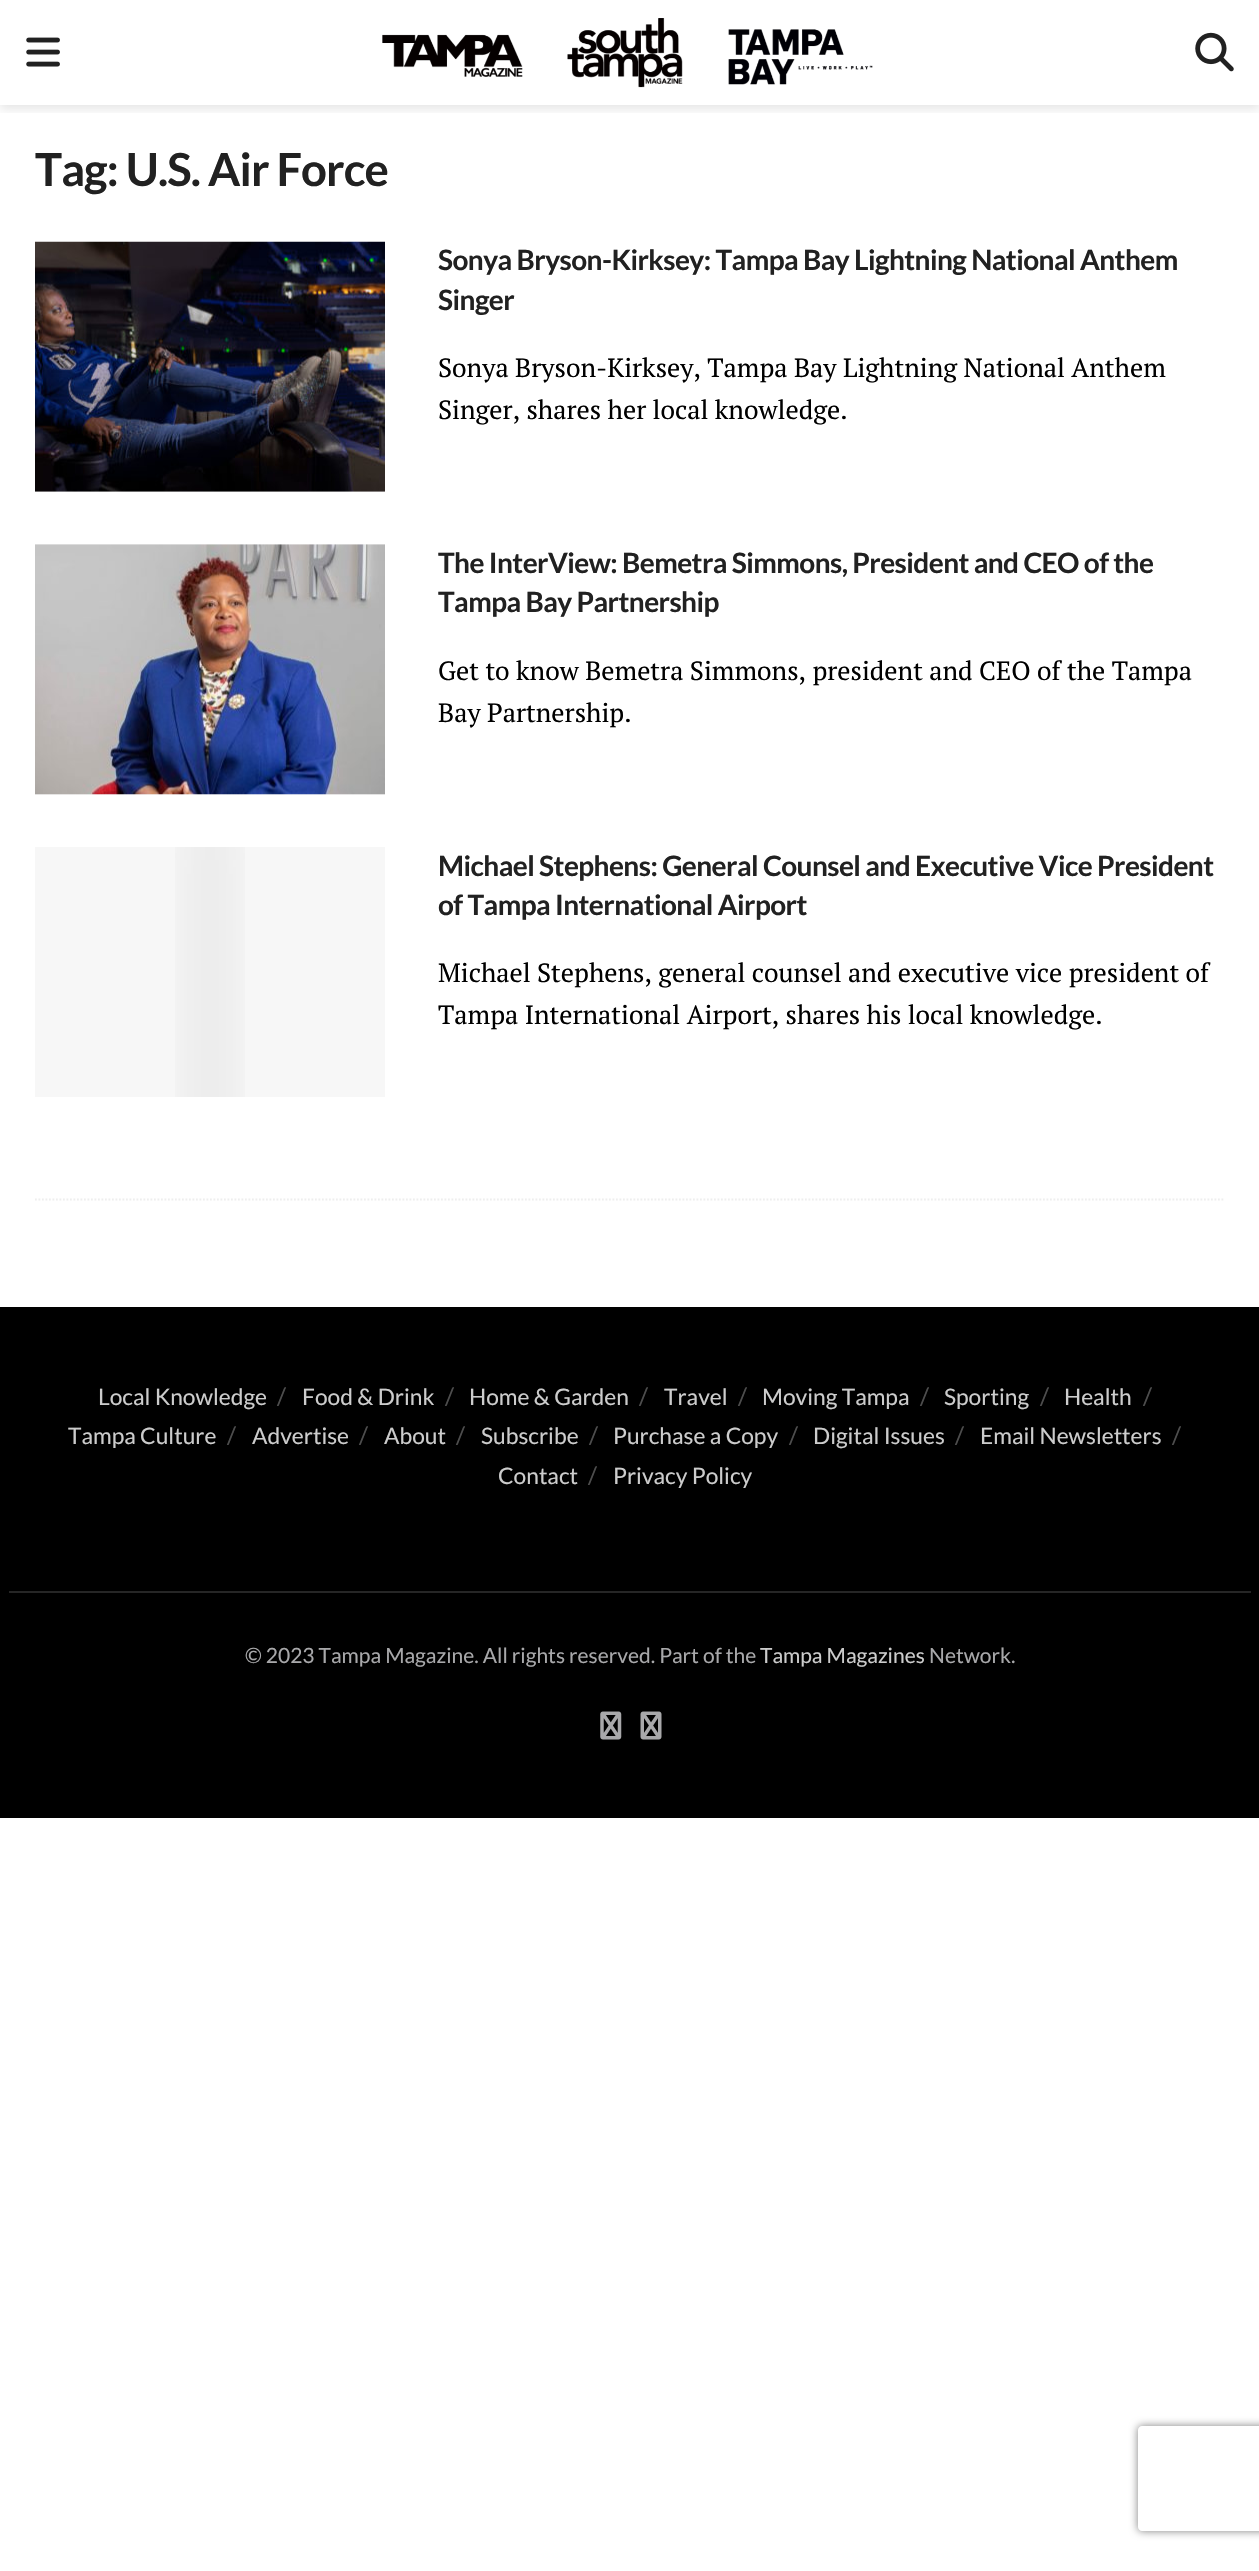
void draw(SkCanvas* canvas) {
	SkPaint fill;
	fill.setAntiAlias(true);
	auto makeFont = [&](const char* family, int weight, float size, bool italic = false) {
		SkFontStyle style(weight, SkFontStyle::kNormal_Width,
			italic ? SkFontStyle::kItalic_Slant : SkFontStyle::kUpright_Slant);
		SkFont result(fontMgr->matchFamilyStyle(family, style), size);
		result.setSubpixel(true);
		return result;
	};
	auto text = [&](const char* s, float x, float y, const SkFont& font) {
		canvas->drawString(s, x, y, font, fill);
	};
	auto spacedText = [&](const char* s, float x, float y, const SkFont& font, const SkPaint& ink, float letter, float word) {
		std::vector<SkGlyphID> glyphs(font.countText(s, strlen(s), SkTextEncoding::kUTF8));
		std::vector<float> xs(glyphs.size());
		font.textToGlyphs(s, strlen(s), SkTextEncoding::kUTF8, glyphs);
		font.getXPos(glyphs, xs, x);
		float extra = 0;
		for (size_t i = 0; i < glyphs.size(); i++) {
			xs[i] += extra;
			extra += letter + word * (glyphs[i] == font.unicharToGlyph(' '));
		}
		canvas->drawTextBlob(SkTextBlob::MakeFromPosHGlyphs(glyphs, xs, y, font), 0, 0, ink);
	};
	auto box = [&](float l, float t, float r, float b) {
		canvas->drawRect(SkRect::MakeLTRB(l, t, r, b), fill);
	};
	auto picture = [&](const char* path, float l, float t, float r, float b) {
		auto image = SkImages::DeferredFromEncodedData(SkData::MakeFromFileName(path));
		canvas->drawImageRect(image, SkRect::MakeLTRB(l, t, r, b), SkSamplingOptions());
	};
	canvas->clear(0xFFFFFFFF);
	canvas->save();
	canvas->clipRect(SkRect::MakeLTRB(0, 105, 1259, 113));
	fill.setColor(0x1A000000);
	fill.setMaskFilter(SkMaskFilter::MakeBlur(kNormal_SkBlurStyle, 5));
	canvas->drawRect(SkRect::MakeLTRB(0, 4, 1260, 109), fill);
	fill.setMaskFilter(nullptr);
	canvas->restore();
	picture("image0.png", 26, 37, 60, 67);
	picture("image1.png", 382, 18, 873, 88);
	picture("image2.png", 1195, 32, 1234, 72);
	fill.setColor(0xFFF7F7F7);
	box(35, 491, 385, 492);
	picture("image3.png", 35, 241, 385, 492);
	box(35, 544, 385, 795);
	picture("image4.png", 35, 544, 385, 795);
	box(35, 847, 385, 1097);
	picture("image5.png", 175, 847, 245, 1097);
	fill.setStyle(SkPaint::kStroke_Style);
	fill.setStrokeWidth(1.8f);
	fill.setColor(0xFFEEEEEE);
	fill.setPathEffect(SkDashPathEffect::Make({{1.75f, 1.75f}}, 0));
	canvas->drawPath(SkPathBuilder().moveTo(35, 1199.5f).lineTo(1225, 1199.5f).detach(), fill);
	fill.setPathEffect(nullptr);
	fill.setStyle(SkPaint::kFill_Style);
	fill.setColor(0xFF000000);
	box(0, 1307, 1259, 1818);
	fill.setColor(0xFF262626);
	box(9, 1591, 1251, 1593);
	picture("image6.png", 600, 1711, 622, 1740);
	picture("image7.png", 640, 1711, 662, 1740);
	canvas->save();
	canvas->clipPath(SkPathBuilder(SkPathFillType::kEvenOdd).moveTo(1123, 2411).lineTo(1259, 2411).lineTo(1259, 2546).lineTo(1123, 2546).close().moveTo(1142, 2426).lineTo(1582, 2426).cubicTo(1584, 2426, 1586, 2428, 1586, 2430).lineTo(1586, 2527).cubicTo(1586, 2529, 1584, 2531, 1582, 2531).lineTo(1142, 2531).cubicTo(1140, 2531, 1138, 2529, 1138, 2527).lineTo(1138, 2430).cubicTo(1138, 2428, 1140, 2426, 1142, 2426).close().detach(), true);
	fill.setColor(0xFF808080);
	fill.setMaskFilter(SkMaskFilter::MakeBlur(kNormal_SkBlurStyle, 4.5f));
	canvas->drawRoundRect(SkRect::MakeLTRB(1138, 2426, 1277, 2531), 4, 4, fill);
	fill.setMaskFilter(nullptr);
	canvas->restore();
	auto font1 = makeFont("Lato", 700, 45.5f);
	fill.setColor(0xFF212121);
	spacedText("Tag: U.S. Air Force", 35, 186, font1, fill, -0.9f, 0);
	auto font2 = makeFont("Lato", 700, 28);
	spacedText("Sonya Bryson-Kirksey: Tampa Bay Lightning National Anthem", 438, 270, font2, fill, -0.55f, 0);
	spacedText("Singer", 438, 310, font2, fill, -0.55f, 0);
	auto font3 = makeFont("PT Serif", 400, 26.25f);
	fill.setColor(0xFF000000);
	text("Sonya Bryson-Kirksey, Tampa Bay Lightning National Anthem", 438, 377, font3);
	text("Singer, shares her local knowledge.", 438, 419, font3);
	canvas->save();
	canvas->clipRect(SkRect::MakeLTRB(438, 544, 1225, 732));
	fill.setColor(0xFF212121);
	spacedText("The InterView: Bemetra Simmons, President and CEO of the", 438, 573, font2, fill, -0.55f, 0);
	spacedText("Tampa Bay Partnership", 438, 612, font2, fill, -0.55f, 0);
	canvas->restore();
	fill.setColor(0xFF000000);
	text("Get to know Bemetra Simmons, president and CEO of the Tampa", 438, 680, font3);
	text("Bay Partnership.", 438, 722, font3);
	fill.setColor(0xFF212121);
	spacedText("Michael Stephens: General Counsel and Executive Vice President", 438, 876, font2, fill, -0.55f, 0);
	spacedText("of Tampa International Airport", 438, 915, font2, fill, -0.55f, 0);
	fill.setColor(0xFF000000);
	text("Michael Stephens, general counsel and executive vice president of", 438, 982, font3);
	text("Tampa International Airport, shares his local knowledge.", 438, 1024, font3);
	auto font4 = makeFont("Lato", 400, 22.75f);
	fill.setColor(0xFFCCCCCC);
	text("Local Knowledge", 98, 1405, font4);
	auto font5 = makeFont("Lato", 400, 24);
	fill.setColor(0xFF4D4D4D);
	text("/", 277, 1405, font5);
	fill.setColor(0xFFCCCCCC);
	text("Food & Drink", 302, 1405, font4);
	fill.setColor(0xFF4D4D4D);
	text("/", 445, 1405, font5);
	fill.setColor(0xFFCCCCCC);
	text("Home & Garden", 469, 1405, font4);
	fill.setColor(0xFF4D4D4D);
	text("/", 639, 1405, font5);
	fill.setColor(0xFFCCCCCC);
	text("Travel", 664, 1405, font4);
	fill.setColor(0xFF4D4D4D);
	text("/", 738, 1405, font5);
	fill.setColor(0xFFCCCCCC);
	text("Moving Tampa", 762, 1405, font4);
	fill.setColor(0xFF4D4D4D);
	text("/", 920, 1405, font5);
	fill.setColor(0xFFCCCCCC);
	text("Sporting", 944, 1405, font4);
	fill.setColor(0xFF4D4D4D);
	text("/", 1040, 1405, font5);
	fill.setColor(0xFFCCCCCC);
	text("Health", 1064, 1405, font4);
	fill.setColor(0xFF4D4D4D);
	text("/", 1143, 1405, font5);
	fill.setColor(0xFFCCCCCC);
	text("Tampa Culture", 68, 1444, font4);
	fill.setColor(0xFF4D4D4D);
	text("/", 227, 1444, font5);
	fill.setColor(0xFFCCCCCC);
	text("Advertise", 252, 1444, font4);
	fill.setColor(0xFF4D4D4D);
	text("/", 359, 1444, font5);
	fill.setColor(0xFFCCCCCC);
	text("About", 384, 1444, font4);
	fill.setColor(0xFF4D4D4D);
	text("/", 456, 1444, font5);
	fill.setColor(0xFFCCCCCC);
	text("Subscribe", 481, 1444, font4);
	fill.setColor(0xFF4D4D4D);
	text("/", 589, 1444, font5);
	fill.setColor(0xFFCCCCCC);
	text("Purchase a Copy", 613, 1444, font4);
	fill.setColor(0xFF4D4D4D);
	text("/", 789, 1444, font5);
	fill.setColor(0xFFCCCCCC);
	text("Digital Issues", 813, 1444, font4);
	fill.setColor(0xFF4D4D4D);
	text("/", 955, 1444, font5);
	fill.setColor(0xFFCCCCCC);
	text("Email Newsletters", 980, 1444, font4);
	fill.setColor(0xFF4D4D4D);
	text("/", 1172, 1444, font5);
	fill.setColor(0xFFCCCCCC);
	text("Contact", 498, 1484, font4);
	fill.setColor(0xFF4D4D4D);
	text("/", 588, 1484, font5);
	fill.setColor(0xFFCCCCCC);
	text("Privacy Policy", 613, 1484, font4);
	auto font6 = makeFont("Lato", 400, 21);
	fill.setColor(0xFFA8A8AA);
	text("© 2023 Tampa Magazine. All rights reserved. Part of the", 245, 1663, font6);
	fill.setColor(0xFFCCCCCC);
	text("Tampa Magazines", 760, 1663, font6);
	fill.setColor(0xFFA8A8AA);
	text("Network.", 929, 1663, font6);
}
